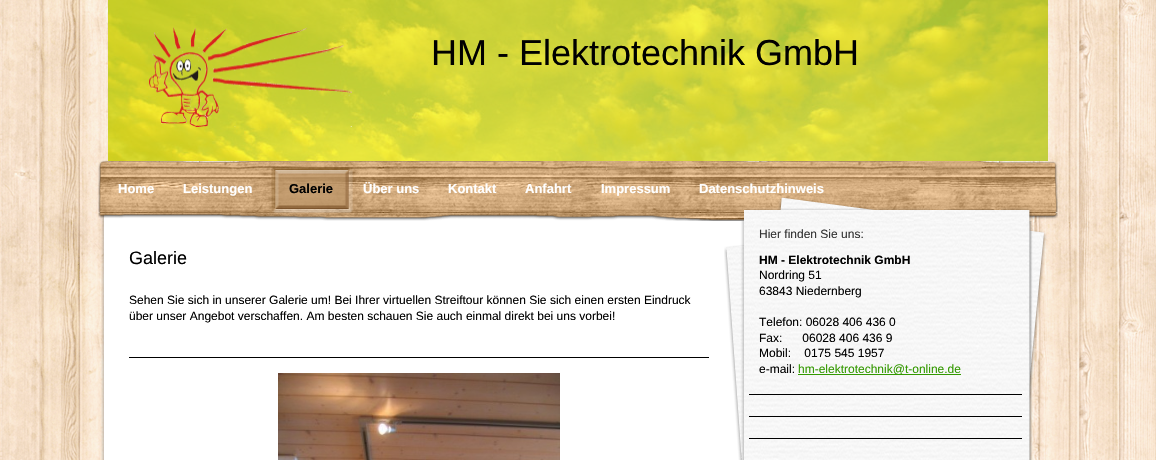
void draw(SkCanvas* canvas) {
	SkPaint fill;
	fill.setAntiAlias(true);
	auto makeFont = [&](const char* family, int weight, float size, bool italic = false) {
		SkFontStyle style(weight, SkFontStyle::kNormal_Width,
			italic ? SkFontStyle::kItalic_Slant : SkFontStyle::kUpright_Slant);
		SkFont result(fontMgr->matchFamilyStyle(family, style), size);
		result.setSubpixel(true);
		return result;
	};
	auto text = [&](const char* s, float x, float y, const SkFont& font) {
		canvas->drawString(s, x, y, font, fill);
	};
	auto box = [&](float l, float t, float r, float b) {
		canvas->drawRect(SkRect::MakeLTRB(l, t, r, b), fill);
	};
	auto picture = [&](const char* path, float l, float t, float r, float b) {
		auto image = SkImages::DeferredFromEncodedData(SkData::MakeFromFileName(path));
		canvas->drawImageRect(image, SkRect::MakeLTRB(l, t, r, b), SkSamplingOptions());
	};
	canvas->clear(0xFFFFFFFF);
	picture("image0.png", 0, 0, 1156, 460);
	picture("image3.png", 98, 160, 1058, 167);
	picture("image1.png", 108, 0, 1048, 161);
	picture("image2.png", 149, 27, 352, 127);
	picture("image4.png", 98, 167, 1058, 213);
	picture("image5.png", 271, 167, 279, 213);
	picture("image6.png", 279, 167, 353, 213);
	picture("image7.png", 98, 213, 1058, 221);
	picture("image8.png", 101, 221, 744, 460);
	picture("image9.png", 724, 221, 744, 460);
	fill.setColor(0xFF000000);
	box(129, 357, 709, 358);
	picture("image10.png", 278, 373, 560, 460);
	picture("image11.png", 744, 197, 1032, 221);
	picture("image12.png", 1029, 221, 1047, 460);
	picture("image13.png", 744, 221, 1032, 460);
	fill.setColor(0xFF339900);
	box(798, 374, 961, 375);
	fill.setColor(0xFF000000);
	box(749, 394, 1022, 395);
	box(749, 416, 1022, 417);
	box(749, 438, 1022, 439);
	auto font1 = makeFont("Liberation Sans", 400, 36);
	text("HM - Elektrotechnik GmbH", 431, 65, font1);
	auto font2 = makeFont("Liberation Sans", 700, 13);
	fill.setColor(0xFFFFFFFF);
	text("Home", 118, 193, font2);
	text("Leistungen", 183, 193, font2);
	fill.setColor(0xFF000000);
	text("Galerie", 289, 193, font2);
	fill.setColor(0xFFFFFFFF);
	text("Über uns", 363, 193, font2);
	text("Kontakt", 448, 193, font2);
	text("Anfahrt", 525, 193, font2);
	text("Impressum", 601, 193, font2);
	text("Datenschutzhinweis", 699, 193, font2);
	auto font3 = makeFont("Liberation Sans", 400, 18);
	fill.setColor(0xFF000000);
	text("Galerie", 129, 264, font3);
	auto font4 = makeFont("Liberation Sans", 400, 12);
	text("Sehen Sie sich in unserer Galerie um! Bei Ihrer virtuellen Streiftour können Sie sich einen ersten Eindruck", 129, 304, font4);
	text("über unser Angebot verschaffen. Am besten schauen Sie auch einmal direkt bei uns vorbei!", 129, 320, font4);
	fill.setColor(0xFF333333);
	text("Hier finden Sie uns:", 759, 238, font4);
	auto font5 = makeFont("Liberation Sans", 700, 12);
	fill.setColor(0xFF000000);
	text("HM - Elektrotechnik GmbH", 759, 264, font5);
	text("Nordring 51", 759, 279, font4);
	text("63843 Niedernberg", 759, 295, font4);
	text("Telefon: 06028 406 436 0", 759, 326, font4);
	text("Fax:      06028 406 436 9", 759, 342, font4);
	text("Mobil:    0175 545 1957", 759, 357, font4);
	text("e-mail:", 759, 373, font4);
	fill.setColor(0xFF339900);
	text("hm-elektrotechnik@t-online.de", 798, 373, font4);
}
